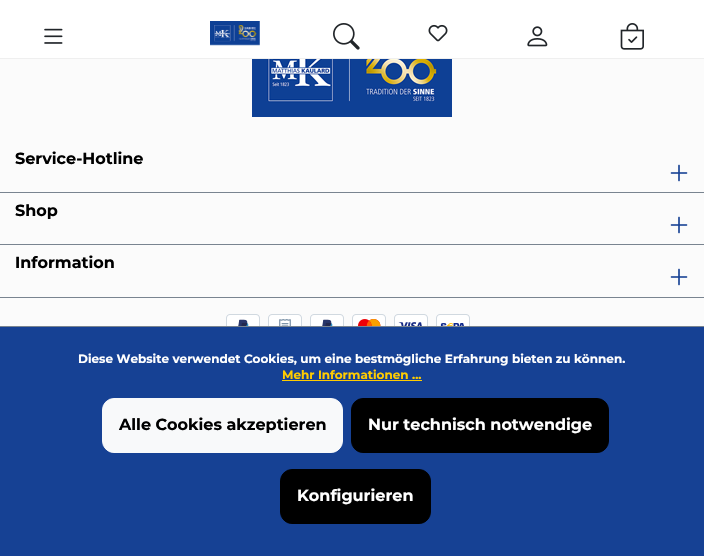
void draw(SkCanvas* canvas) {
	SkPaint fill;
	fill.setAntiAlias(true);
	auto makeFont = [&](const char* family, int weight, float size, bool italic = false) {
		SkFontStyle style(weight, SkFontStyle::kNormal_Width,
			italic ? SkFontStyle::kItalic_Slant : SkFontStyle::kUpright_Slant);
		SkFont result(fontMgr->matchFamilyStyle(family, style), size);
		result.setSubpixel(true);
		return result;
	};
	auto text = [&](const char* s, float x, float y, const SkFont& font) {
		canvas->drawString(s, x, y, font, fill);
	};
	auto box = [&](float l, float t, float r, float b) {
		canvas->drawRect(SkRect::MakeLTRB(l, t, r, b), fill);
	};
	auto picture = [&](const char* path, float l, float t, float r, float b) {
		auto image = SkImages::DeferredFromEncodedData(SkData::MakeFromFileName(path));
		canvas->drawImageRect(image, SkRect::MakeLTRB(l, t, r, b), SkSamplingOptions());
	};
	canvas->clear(0xFFFBFBFB);
	fill.setColor(0xFFFFFFFF);
	box(0, 0, 704, 58);
	fill.setColor(0xFFEFEFEF);
	box(0, 58, 704, 59);
	picture("image0.png", 44, 28, 63, 44);
	picture("image1.png", 210, 21, 260, 46);
	picture("image2.png", 333, 23, 360, 50);
	picture("image3.png", 428, 24, 448, 42);
	picture("image4.png", 527, 26, 548, 47);
	picture("image5.png", 620, 23, 644, 50);
	picture("image6.png", 252, 59, 452, 117);
	fill.setColor(0xFF798490);
	box(0, 192, 704, 193);
	picture("image7.png", 670, 164, 688, 182);
	box(0, 244, 704, 245);
	picture("image7.png", 670, 216, 688, 234);
	box(0, 297, 704, 298);
	picture("image7.png", 670, 268, 688, 286);
	picture("image8.png", 226, 314, 260, 326);
	picture("image9.png", 268, 314, 302, 326);
	picture("image8.png", 310, 314, 344, 326);
	picture("image10.png", 352, 314, 428, 326);
	picture("image11.png", 436, 314, 470, 326);
	fill.setColor(0xFF164194);
	box(0, 327, 704, 556);
	fill.setColor(0xFF798490);
	box(0, 326, 704, 327);
	fill.setColor(0xFFFFCC00);
	box(282, 380, 422, 381);
	fill.setColor(0xFFF8F9FA);
	canvas->drawRoundRect(SkRect::MakeLTRB(102.5f, 398.5f, 342.5f, 452.5f), 11.5f, 11.5f, fill);
	fill.setStyle(SkPaint::kStroke_Style);
	fill.setStrokeWidth(1);
	canvas->drawRoundRect(SkRect::MakeLTRB(102.5f, 398.5f, 342.5f, 452.5f), 11.5f, 11.5f, fill);
	fill.setStyle(SkPaint::kFill_Style);
	fill.setColor(0xFF000000);
	canvas->drawRoundRect(SkRect::MakeLTRB(351.5f, 398.5f, 608.5f, 452.5f), 11.5f, 11.5f, fill);
	fill.setStyle(SkPaint::kStroke_Style);
	canvas->drawRoundRect(SkRect::MakeLTRB(351.5f, 398.5f, 608.5f, 452.5f), 11.5f, 11.5f, fill);
	fill.setStyle(SkPaint::kFill_Style);
	canvas->drawRoundRect(SkRect::MakeLTRB(280.5f, 469.5f, 430.5f, 523.5f), 11.5f, 11.5f, fill);
	fill.setStyle(SkPaint::kStroke_Style);
	canvas->drawRoundRect(SkRect::MakeLTRB(280.5f, 469.5f, 430.5f, 523.5f), 11.5f, 11.5f, fill);
	auto font1 = makeFont("Montserrat", 100, 16);
	fill.setStyle(SkPaint::kFill_Style);
	text("Service-Hotline", 15, 164, font1);
	text("Shop", 15, 216, font1);
	text("Information", 15, 268, font1);
	auto font2 = makeFont("Montserrat", 100, 12);
	fill.setColor(0xFFFFFFFF);
	text("Diese Website verwendet Cookies, um eine bestmögliche Erfahrung bieten zu können.", 78, 363, font2);
	fill.setColor(0xFFFFCC00);
	text("Mehr Informationen ...", 282, 379, font2);
	fill.setColor(0xFF000000);
	text("Alle Cookies akzeptieren", 119, 430, font1);
	fill.setColor(0xFFFFFFFF);
	text("Nur technisch notwendige", 368, 430, font1);
	text("Konfigurieren", 297, 501, font1);
}
